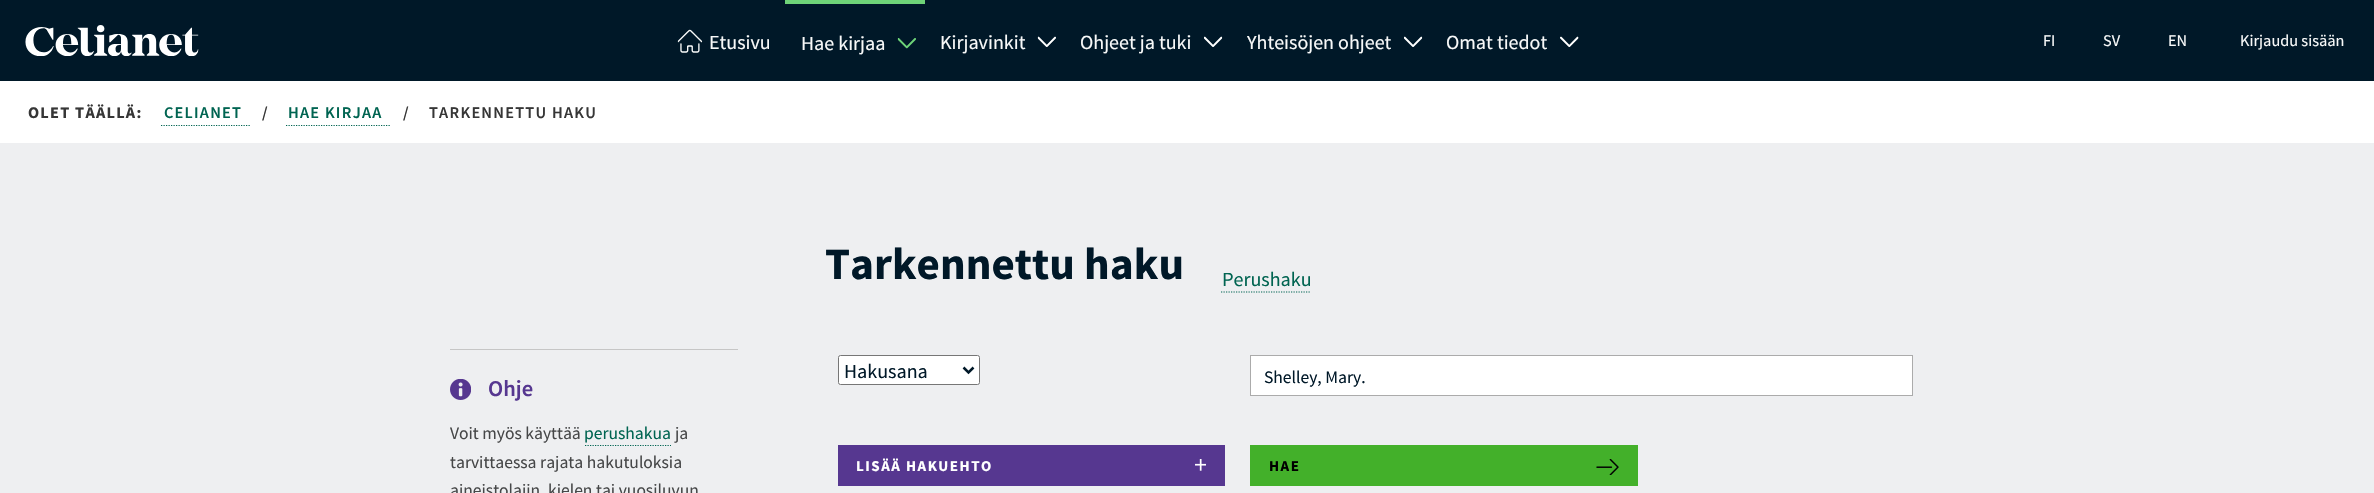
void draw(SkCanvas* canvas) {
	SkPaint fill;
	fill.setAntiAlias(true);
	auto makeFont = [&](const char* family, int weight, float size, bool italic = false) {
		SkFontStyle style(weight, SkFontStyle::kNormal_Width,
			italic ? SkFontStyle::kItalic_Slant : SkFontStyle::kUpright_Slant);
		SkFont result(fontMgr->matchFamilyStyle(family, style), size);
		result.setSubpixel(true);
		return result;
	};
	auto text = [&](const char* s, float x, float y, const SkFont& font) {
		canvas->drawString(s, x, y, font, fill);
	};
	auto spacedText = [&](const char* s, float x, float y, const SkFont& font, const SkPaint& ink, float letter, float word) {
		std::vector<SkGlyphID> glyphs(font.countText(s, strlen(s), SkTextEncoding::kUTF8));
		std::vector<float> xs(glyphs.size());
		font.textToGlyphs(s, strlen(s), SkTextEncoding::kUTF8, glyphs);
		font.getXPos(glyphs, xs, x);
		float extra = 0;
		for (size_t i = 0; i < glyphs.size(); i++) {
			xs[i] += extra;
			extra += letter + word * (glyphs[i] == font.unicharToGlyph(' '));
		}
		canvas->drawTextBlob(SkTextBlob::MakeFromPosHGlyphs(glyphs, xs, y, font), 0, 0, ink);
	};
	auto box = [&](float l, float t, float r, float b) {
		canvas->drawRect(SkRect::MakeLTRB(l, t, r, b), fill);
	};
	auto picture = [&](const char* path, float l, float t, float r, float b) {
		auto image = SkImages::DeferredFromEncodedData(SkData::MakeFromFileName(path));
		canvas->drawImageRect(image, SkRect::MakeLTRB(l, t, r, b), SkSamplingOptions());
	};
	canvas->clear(0xFFEEEFF1);
	fill.setColor(0xFF001828);
	box(0, 0, 2374, 81);
	picture("image0.png", 25, 25, 199, 56);
	picture("image1.png", 677, 29, 703, 53);
	fill.setColor(0xFF6ED378);
	box(785, 0, 925, 4);
	picture("image2.png", 897, 38, 916, 49);
	picture("image3.png", 1037, 36, 1056, 47);
	picture("image4.png", 1204, 36, 1223, 47);
	picture("image4.png", 1404, 36, 1423, 47);
	picture("image5.png", 1560, 36, 1579, 47);
	fill.setColor(0xFFFFFFFF);
	box(0, 81, 2374, 143);
	fill.setStyle(SkPaint::kStroke_Style);
	fill.setStrokeWidth(1.2f);
	fill.setColor(0xFF006451);
	fill.setPathEffect(SkDashPathEffect::Make({{1.25f, 1.25f}}, 0));
	canvas->drawPath(SkPathBuilder().moveTo(161, 125.5f).lineTo(250, 125.5f).detach(), fill);
	fill.setPathEffect(nullptr);
	fill.setPathEffect(SkDashPathEffect::Make({{1.25f, 1.25f}}, 0));
	canvas->drawPath(SkPathBuilder().moveTo(286, 125.5f).lineTo(390, 125.5f).detach(), fill);
	fill.setPathEffect(nullptr);
	fill.setPathEffect(SkDashPathEffect::Make({{1.25f, 1.25f}}, 0));
	canvas->drawPath(SkPathBuilder().moveTo(1221, 292).lineTo(1311, 292).detach(), fill);
	fill.setPathEffect(nullptr);
	fill.setStyle(SkPaint::kFill_Style);
	fill.setColor(0xFFC6C6C6);
	box(450, 349, 738, 350);
	picture("image6.png", 450, 379, 471, 400);
	fill.setStyle(SkPaint::kStroke_Style);
	fill.setColor(0xFF006451);
	fill.setPathEffect(SkDashPathEffect::Make({{1.25f, 1.25f}}, 0));
	canvas->drawPath(SkPathBuilder().moveTo(585, 445.5f).lineTo(671, 445.5f).detach(), fill);
	fill.setPathEffect(nullptr);
	fill.setStyle(SkPaint::kFill_Style);
	fill.setColor(0xFFFFFFFF);
	canvas->drawRoundRect(SkRect::MakeLTRB(838.5f, 355.5f, 979.5f, 384.5f), 2, 2, fill);
	fill.setStyle(SkPaint::kStroke_Style);
	fill.setStrokeWidth(1);
	fill.setColor(0xFF767676);
	canvas->drawRoundRect(SkRect::MakeLTRB(838.5f, 355.5f, 979.5f, 384.5f), 2, 2, fill);
	fill.setStrokeWidth(2.5f);
	fill.setColor(0xFF001828);
	canvas->drawPath(SkPathBuilder().moveTo(963.5f, 367.5f).lineTo(968.5f, 372.5f).lineTo(973.5f, 367.5f).detach(), fill);
	fill.setStyle(SkPaint::kFill_Style);
	fill.setColor(0xFFFFFFFF);
	canvas->drawRect(SkRect::MakeLTRB(1250.5f, 355.5f, 1912.5f, 395.5f), fill);
	fill.setStyle(SkPaint::kStroke_Style);
	fill.setStrokeWidth(1);
	fill.setColor(0xFFABABAB);
	canvas->drawRect(SkRect::MakeLTRB(1250.5f, 355.5f, 1912.5f, 395.5f), fill);
	fill.setStyle(SkPaint::kFill_Style);
	fill.setColor(0xFF563790);
	box(838, 445, 1225, 486);
	picture("image7.png", 1195, 459, 1206, 471);
	fill.setColor(0xFF43B02A);
	box(1250, 445, 1638, 486);
	picture("image8.png", 1596, 459, 1619, 475);
	auto font1 = makeFont("Source Sans Pro", 400, 20);
	fill.setColor(0xFFF8F9F9);
	text("Etusivu", 709, 49, font1);
	text("Hae kirjaa", 801, 50, font1);
	text("Kirjavinkit", 940, 49, font1);
	text("Ohjeet ja tuki", 1080, 49, font1);
	text("Yhteisöjen ohjeet", 1247, 49, font1);
	text("Omat tiedot", 1446, 49, font1);
	auto font2 = makeFont("Source Sans Pro", 400, 16.25f);
	text("FI", 2043, 46, font2);
	text("SV", 2103, 46, font2);
	text("EN", 2168, 46, font2);
	text("Kirjaudu sisään", 2240, 46, font2);
	auto font3 = makeFont("Source Sans Pro", 700, 16.25f);
	fill.setColor(0xFF363636);
	spacedText("OLET TÄÄLLÄ:", 28, 118, font3, fill, 1.25f, 0);
	auto font4 = makeFont("Source Sans Pro", 600, 16.25f);
	fill.setColor(0xFF006451);
	spacedText("CELIANET", 164, 118, font4, fill, 1.25f, 0);
	fill.setColor(0xFF363636);
	spacedText("/", 262, 118, font4, fill, 1.25f, 0);
	fill.setColor(0xFF006451);
	spacedText("HAE KIRJAA", 288, 118, font4, fill, 1.25f, 0);
	fill.setColor(0xFF363636);
	spacedText("/", 403, 118, font4, fill, 1.25f, 0);
	spacedText("TARKENNETTU HAKU", 429, 118, font4, fill, 1.25f, 0);
	auto font5 = makeFont("Source Sans Pro", 700, 45);
	fill.setColor(0xFF001828);
	text("Tarkennettu haku", 825, 279, font5);
	fill.setColor(0xFF006451);
	text("Perushaku", 1222, 286, font1);
	auto font6 = makeFont("Source Sans Pro", 600, 22.5f);
	fill.setColor(0xFF563790);
	text("Ohje", 488, 396, font6);
	auto font7 = makeFont("Source Sans Pro", 400, 17.5f);
	fill.setColor(0xFF464748);
	text("Voit myös käyttää", 450, 439, font7);
	fill.setColor(0xFF006451);
	text("perushakua", 584, 439, font7);
	fill.setColor(0xFF464748);
	text("ja", 675, 439, font7);
	text("tarvittaessa rajata hakutuloksia", 450, 468, font7);
	text("aineistolajin, kielen tai vuosiluvun", 450, 496, font7);
	fill.setColor(0xFF001828);
	text("Hakusana", 844, 378, font1);
	text("Shelley, Mary.", 1264, 383, font7);
	auto font8 = makeFont("Source Sans Pro", 700, 15);
	fill.setColor(0xFFFFFFFF);
	spacedText("LISÄÄ HAKUEHTO", 856, 471, font8, fill, 1.5f, 0);
	fill.setColor(0xFF000000);
	spacedText("HAE", 1269, 471, font8, fill, 1.5f, 0);
}
